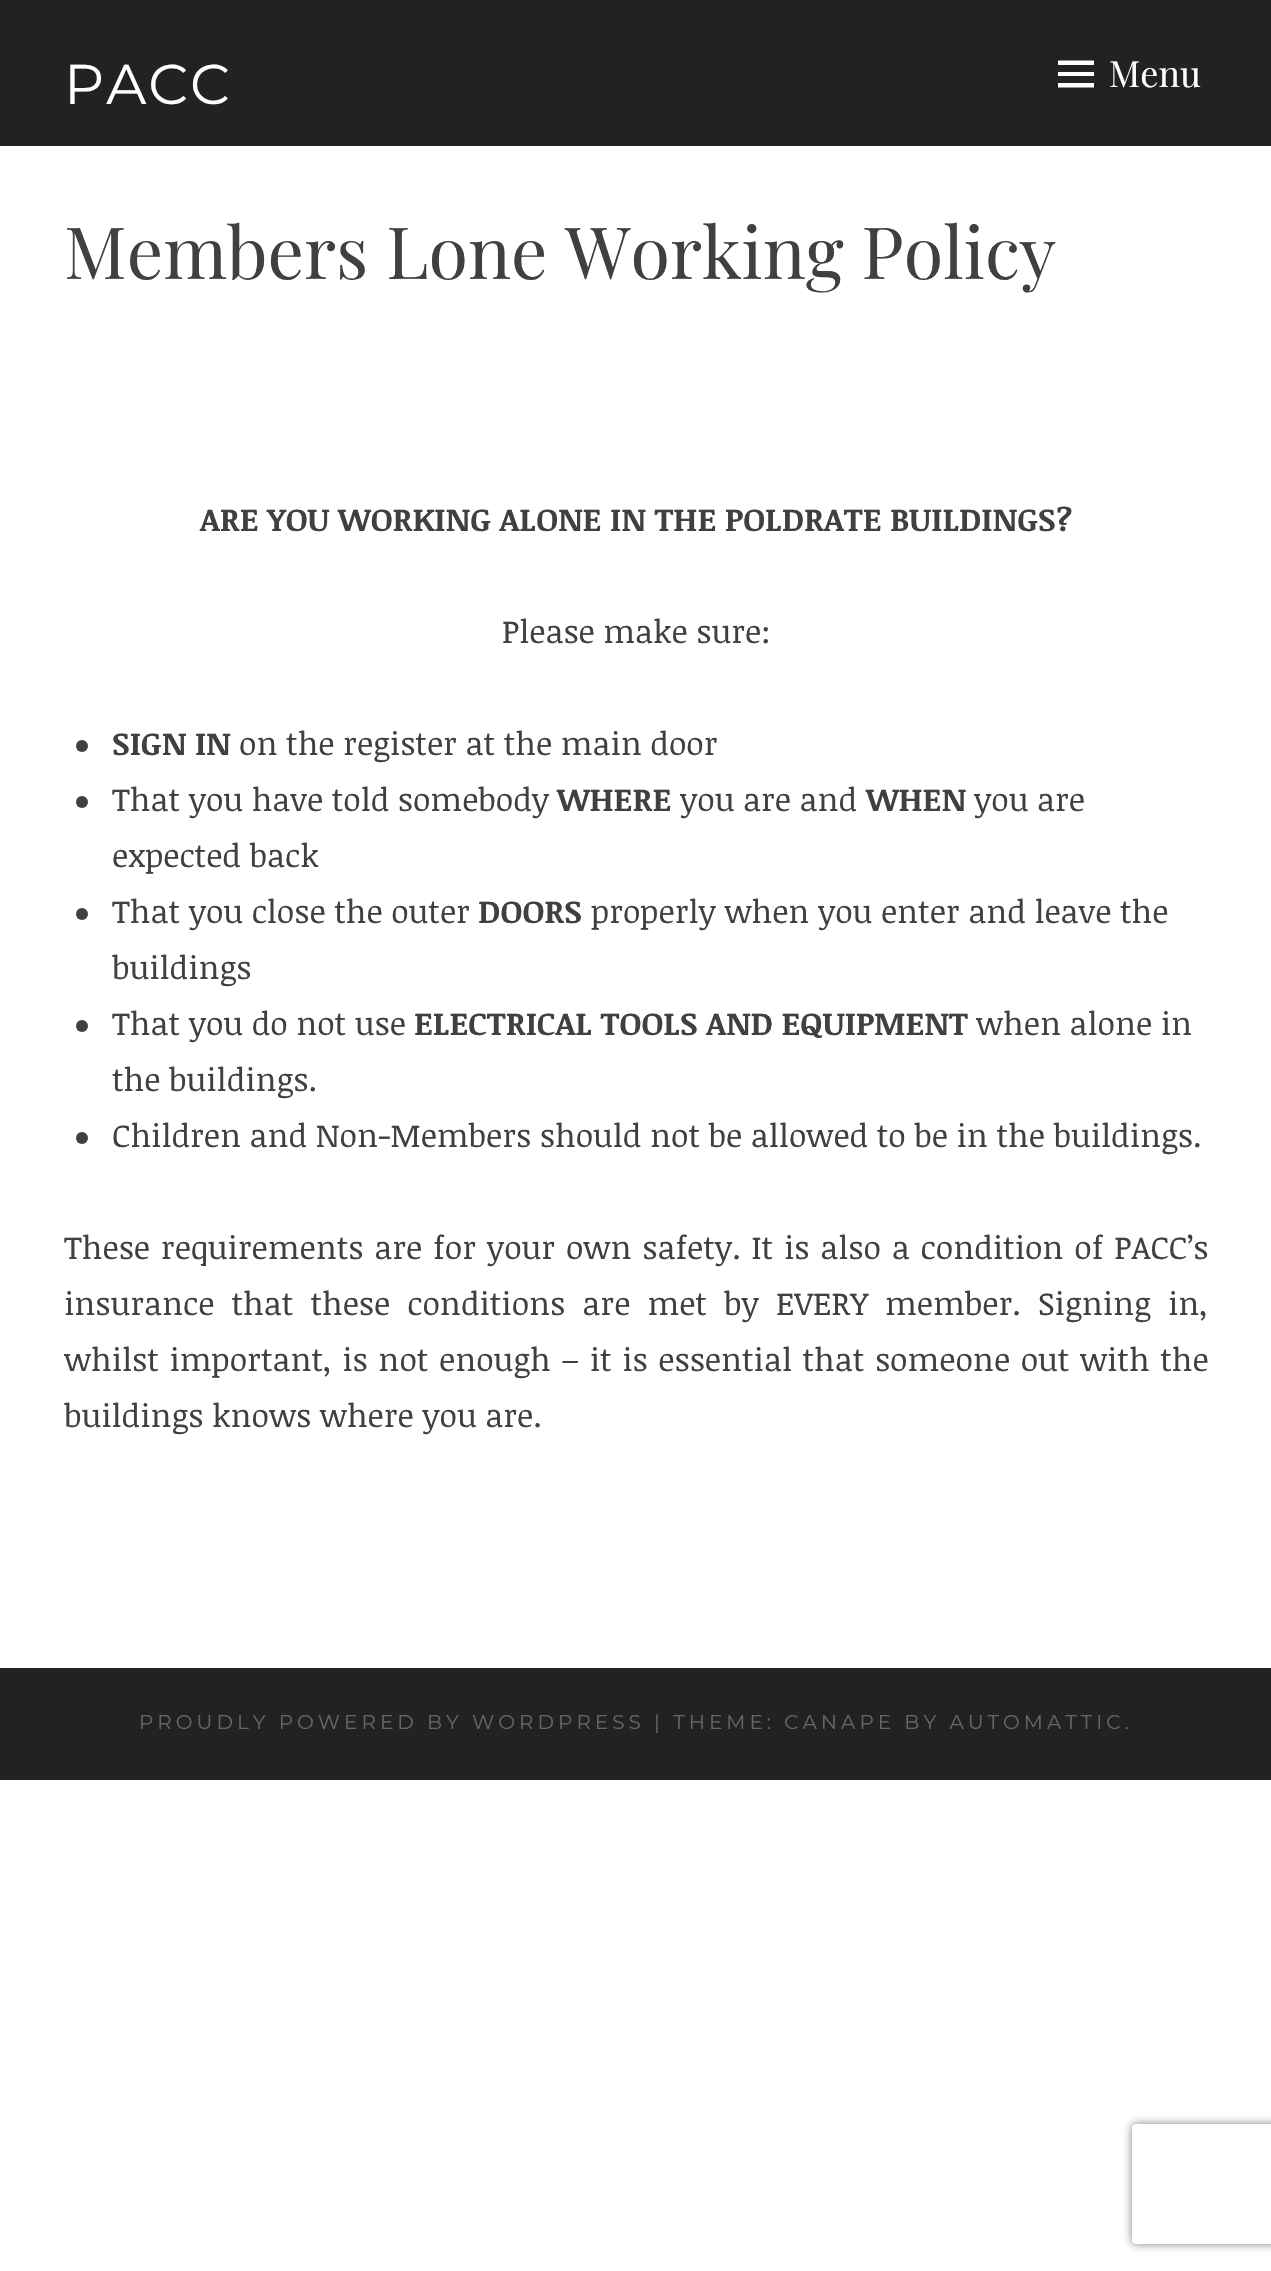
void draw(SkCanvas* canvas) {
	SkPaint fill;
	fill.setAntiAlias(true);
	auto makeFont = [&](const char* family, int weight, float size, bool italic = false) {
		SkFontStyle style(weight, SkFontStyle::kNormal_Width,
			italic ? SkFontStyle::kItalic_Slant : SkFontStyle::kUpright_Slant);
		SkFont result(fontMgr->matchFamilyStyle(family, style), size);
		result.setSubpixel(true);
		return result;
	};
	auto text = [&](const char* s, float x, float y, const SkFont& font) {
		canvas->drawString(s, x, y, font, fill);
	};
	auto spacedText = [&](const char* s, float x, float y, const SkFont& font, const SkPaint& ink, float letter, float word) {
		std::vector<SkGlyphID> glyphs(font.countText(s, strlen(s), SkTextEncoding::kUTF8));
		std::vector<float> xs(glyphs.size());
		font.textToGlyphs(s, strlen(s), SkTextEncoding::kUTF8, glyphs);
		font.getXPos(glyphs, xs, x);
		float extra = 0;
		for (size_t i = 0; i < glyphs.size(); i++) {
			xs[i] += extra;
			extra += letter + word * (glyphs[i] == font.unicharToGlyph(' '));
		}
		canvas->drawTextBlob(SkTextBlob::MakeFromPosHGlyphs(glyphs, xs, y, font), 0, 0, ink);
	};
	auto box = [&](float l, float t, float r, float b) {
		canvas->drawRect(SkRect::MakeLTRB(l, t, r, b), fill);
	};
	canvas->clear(0xFFFFFFFF);
	fill.setColor(0xFF222222);
	box(0, 0, 1271, 146);
	fill.setColor(0xFFFFFFFF);
	canvas->drawPath(SkPathBuilder().moveTo(1058, 87.5f).lineTo(1058, 83).lineTo(1094, 83).lineTo(1094, 87.5f).close().moveTo(1058, 60.5f).lineTo(1094, 60.5f).lineTo(1094, 65).lineTo(1058, 65).close().moveTo(1058, 76).lineTo(1058, 72).lineTo(1094, 72).lineTo(1094, 76).close().detach(), fill);
	fill.setColor(0xFF404040);
	canvas->drawCircle(82, 746, 6, fill);
	canvas->drawCircle(82, 802, 6, fill);
	canvas->drawCircle(82, 914, 6, fill);
	canvas->drawCircle(82, 1026, 6, fill);
	canvas->drawCircle(82, 1138, 6, fill);
	fill.setColor(0xFF222222);
	box(0, 1668, 1271, 1780);
	canvas->save();
	canvas->clipPath(SkPathBuilder(SkPathFillType::kEvenOdd).moveTo(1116, 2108).lineTo(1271, 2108).lineTo(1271, 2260).lineTo(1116, 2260).close().moveTo(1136, 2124).lineTo(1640, 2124).cubicTo(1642, 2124, 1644, 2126, 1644, 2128).lineTo(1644, 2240).cubicTo(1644, 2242, 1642, 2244, 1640, 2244).lineTo(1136, 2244).cubicTo(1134, 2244, 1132, 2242, 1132, 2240).lineTo(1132, 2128).cubicTo(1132, 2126, 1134, 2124, 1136, 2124).close().detach(), true);
	fill.setColor(0xFF808080);
	fill.setMaskFilter(SkMaskFilter::MakeBlur(kNormal_SkBlurStyle, 5));
	canvas->drawRoundRect(SkRect::MakeLTRB(1132, 2124, 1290, 2244), 4, 4, fill);
	fill.setMaskFilter(nullptr);
	canvas->restore();
	auto font1 = makeFont("Montserrat", 400, 56);
	fill.setColor(0xFFFFFFFF);
	spacedText("PACC", 64, 104, font1, fill, 2, 0);
	auto font2 = makeFont("Playfair Display", 400, 36);
	text("Menu", 1109, 87, font2);
	auto font3 = makeFont("Playfair Display", 400, 72);
	fill.setColor(0xFF404040);
	text("Members Lone Working Policy", 64, 279, font3);
	auto font4 = makeFont("Noticia Text", 700, 32);
	text("ARE YOU WORKING ALONE IN THE POLDRATE BUILDINGS?", 200, 531, font4);
	auto font5 = makeFont("Noticia Text", 400, 32);
	text("Please make sure:", 502, 643, font5);
	text("SIGN IN", 112, 755, font4);
	text("on the register at the main door", 239, 755, font5);
	text("That you have told somebody", 112, 811, font5);
	text("WHERE", 557, 811, font4);
	text("you are and", 680, 811, font5);
	text("WHEN", 866, 811, font4);
	text("you are", 974, 811, font5);
	text("expected back", 112, 867, font5);
	text("That you close the outer", 112, 923, font5);
	text("DOORS", 478, 923, font4);
	text("properly when you enter and leave the", 591, 923, font5);
	text("buildings", 112, 979, font5);
	text("That you do not use", 112, 1035, font5);
	text("ELECTRICAL TOOLS AND EQUIPMENT", 414, 1035, font4);
	text("when alone in", 976, 1035, font5);
	text("the buildings.", 112, 1091, font5);
	text("Children and Non-Members should not be allowed to be in the buildings.", 112, 1147, font5);
	spacedText("These requirements are for your own safety. It is also a condition of PACC’s", 64, 1259, font5, fill, 0, 2.25f);
	spacedText("insurance that these conditions are met by EVERY member. Signing in,", 64, 1315, font5, fill, 0, 8.5f);
	spacedText("whilst important, is not enough – it is essential that someone out with the", 64, 1371, font5, fill, 0, 2);
	text("buildings knows where you are.", 64, 1427, font5);
	auto font6 = makeFont("Montserrat", 400, 20);
	fill.setColor(0xFF666666);
	spacedText("PROUDLY POWERED BY WORDPRESS | THEME: CANAPE BY AUTOMATTIC.", 139, 1729, font6, fill, 4, 0);
}
